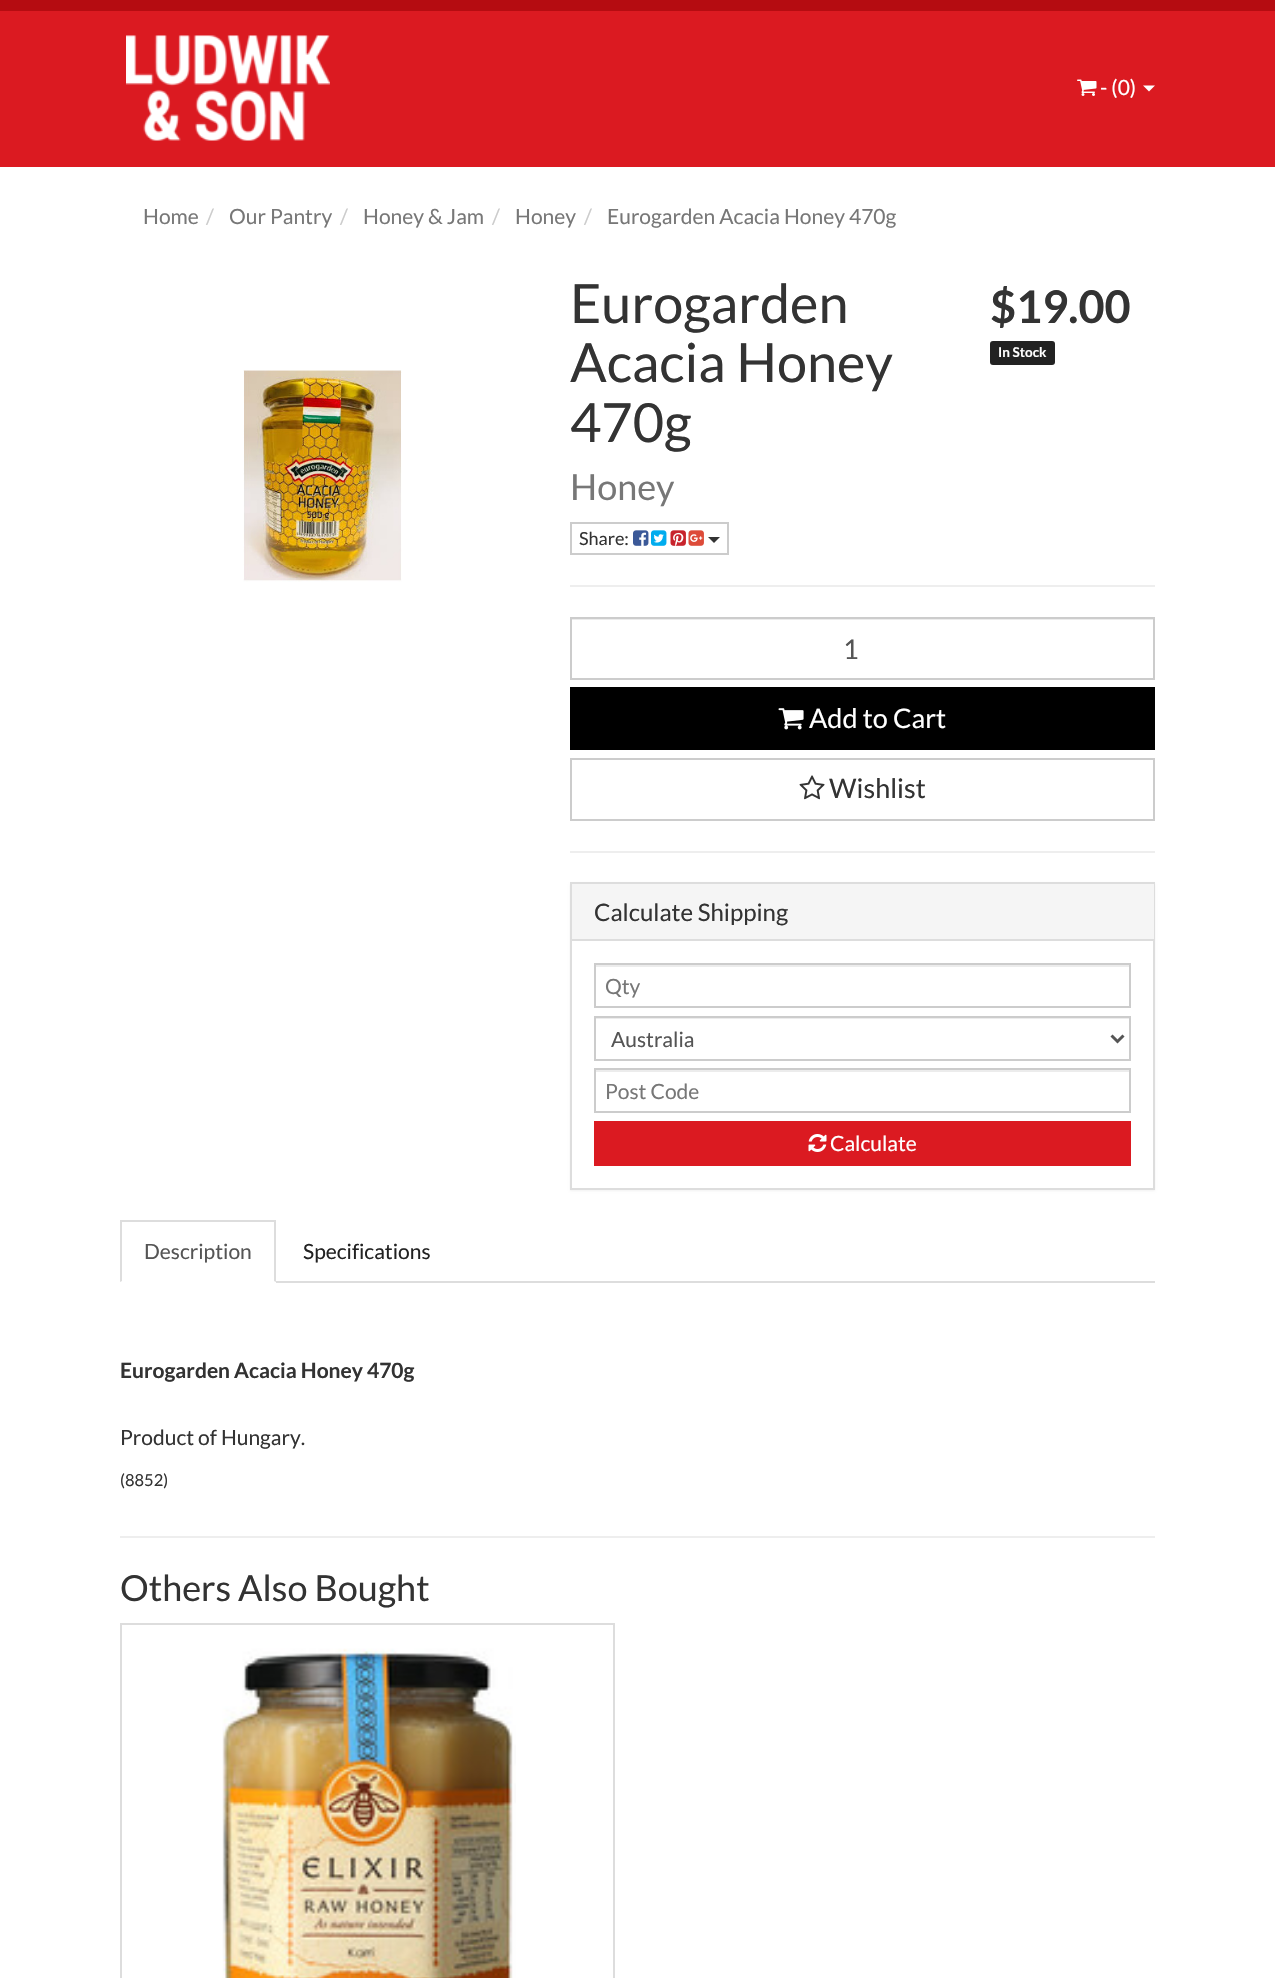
void draw(SkCanvas* canvas) {
	SkPaint fill;
	fill.setAntiAlias(true);
	auto makeFont = [&](const char* family, int weight, float size, bool italic = false) {
		SkFontStyle style(weight, SkFontStyle::kNormal_Width,
			italic ? SkFontStyle::kItalic_Slant : SkFontStyle::kUpright_Slant);
		SkFont result(fontMgr->matchFamilyStyle(family, style), size);
		result.setSubpixel(true);
		return result;
	};
	auto text = [&](const char* s, float x, float y, const SkFont& font) {
		canvas->drawString(s, x, y, font, fill);
	};
	auto box = [&](float l, float t, float r, float b) {
		canvas->drawRect(SkRect::MakeLTRB(l, t, r, b), fill);
	};
	auto roundBox = [&](float l, float t, float r, float b, float radius) {
		canvas->drawRoundRect(SkRect::MakeLTRB(l, t, r, b), radius, radius, fill);
	};
	auto picture = [&](const char* path, float l, float t, float r, float b) {
		auto image = SkImages::DeferredFromEncodedData(SkData::MakeFromFileName(path));
		canvas->drawImageRect(image, SkRect::MakeLTRB(l, t, r, b), SkSamplingOptions());
	};
	canvas->clear(0xFFFFFFFF);
	fill.setColor(0xFFB50C11);
	box(0, 0, 1275, 11);
	fill.setColor(0xFFDB1A21);
	box(0, 11, 1275, 167);
	picture("image0.png", 126, 35, 330, 141);
	picture("image1.png", 1077, 79, 1097, 96);
	fill.setColor(0xFFFFFFFF);
	canvas->drawPath(SkPathBuilder().moveTo(1143, 85.5f).lineTo(1155, 85.5f).lineTo(1149, 91.5f).close().detach(), fill);
	picture("image2.png", 243, 370, 402, 582);
	fill.setStyle(SkPaint::kStroke_Style);
	fill.setStrokeWidth(2);
	fill.setColor(0xFFCCCCCC);
	canvas->drawRect(SkRect::MakeLTRB(571, 523, 728, 554), fill);
	picture("image3.png", 633, 530, 649, 546);
	picture("image4.png", 651, 530, 667, 546);
	picture("image5.png", 670, 530, 686, 546);
	picture("image6.png", 688, 530, 704, 546);
	fill.setStyle(SkPaint::kFill_Style);
	fill.setColor(0xFF333333);
	canvas->drawPath(SkPathBuilder().moveTo(708, 537).lineTo(720, 537).lineTo(714, 543).close().detach(), fill);
	fill.setColor(0xFF222222);
	roundBox(990, 341, 1055, 365, 3);
	fill.setColor(0xFFEEEEEE);
	box(570, 585, 1155, 587);
	fill.setColor(0xFFECECEC);
	box(572, 619, 1154, 620);
	fill.setStyle(SkPaint::kStroke_Style);
	fill.setColor(0xFFCCCCCC);
	canvas->drawRect(SkRect::MakeLTRB(571, 618, 1154, 679), fill);
	fill.setStyle(SkPaint::kFill_Style);
	fill.setColor(0xFF000000);
	box(570, 687, 1155, 750);
	picture("image7.png", 778, 708, 804, 730);
	fill.setStyle(SkPaint::kStroke_Style);
	fill.setColor(0xFFCCCCCC);
	canvas->drawRect(SkRect::MakeLTRB(571, 759, 1154, 820), fill);
	picture("image8.png", 799, 775, 825, 800);
	fill.setStyle(SkPaint::kFill_Style);
	fill.setColor(0xFFEEEEEE);
	box(570, 851, 1155, 853);
	fill.setColor(0x0D000000);
	fill.setMaskFilter(SkMaskFilter::MakeBlur(kNormal_SkBlurStyle, 1));
	canvas->drawRect(SkRect::MakeLTRB(570, 884, 1155, 1191), fill);
	fill.setMaskFilter(nullptr);
	fill.setColor(0xFFFFFFFF);
	box(572, 941, 1153, 1188);
	fill.setStyle(SkPaint::kStroke_Style);
	fill.setColor(0xFFDDDDDD);
	canvas->drawRect(SkRect::MakeLTRB(571, 883, 1154, 1189), fill);
	fill.setStyle(SkPaint::kFill_Style);
	fill.setColor(0xFFF5F5F5);
	box(572, 884, 1154, 939);
	fill.setColor(0xFFDDDDDD);
	box(572, 939, 1154, 941);
	fill.setColor(0xFFECECEC);
	box(596, 965, 1130, 967);
	fill.setStyle(SkPaint::kStroke_Style);
	fill.setColor(0xFFCCCCCC);
	canvas->drawRect(SkRect::MakeLTRB(595, 964, 1130, 1007), fill);
	fill.setStyle(SkPaint::kFill_Style);
	fill.setColor(0xFFECECEC);
	box(596, 1018, 1130, 1019);
	fill.setStyle(SkPaint::kStroke_Style);
	fill.setColor(0xFFCCCCCC);
	canvas->drawRect(SkRect::MakeLTRB(595, 1017, 1130, 1060), fill);
	fill.setStrokeWidth(3);
	fill.setColor(0xFF555555);
	canvas->drawPath(SkPathBuilder().moveTo(1111.5f, 1035.5f).lineTo(1117.5f, 1041.5f).lineTo(1123.5f, 1035.5f).detach(), fill);
	fill.setStyle(SkPaint::kFill_Style);
	fill.setColor(0xFFECECEC);
	box(596, 1070, 1130, 1072);
	fill.setStyle(SkPaint::kStroke_Style);
	fill.setStrokeWidth(2);
	fill.setColor(0xFFCCCCCC);
	canvas->drawRect(SkRect::MakeLTRB(595, 1069, 1130, 1112), fill);
	fill.setStyle(SkPaint::kFill_Style);
	fill.setColor(0xFFDB1A21);
	box(594, 1121, 1131, 1166);
	picture("image9.png", 808, 1134, 827, 1152);
	fill.setColor(0xFFDDDDDD);
	box(276, 1281, 1155, 1283);
	box(120, 1220, 276, 1222);
	canvas->drawPath(SkPathBuilder().moveTo(276, 1220).lineTo(276, 1282).lineTo(274, 1281).lineTo(274, 1221).close().detach(), fill);
	canvas->drawPath(SkPathBuilder().moveTo(120, 1282).lineTo(120, 1220).lineTo(122, 1221).lineTo(122, 1281).close().detach(), fill);
	fill.setColor(0xFFEEEEEE);
	box(120, 1536, 1155, 1538);
	fill.setStyle(SkPaint::kStroke_Style);
	fill.setColor(0xFFDDDDDD);
	canvas->drawRect(SkRect::MakeLTRB(121, 1624, 614, 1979), fill);
	picture("image10.png", 222, 1648, 516, 1978);
	auto font1 = makeFont("Lato", 400, 21);
	fill.setStyle(SkPaint::kFill_Style);
	fill.setColor(0xFFFFFFFF);
	text("- (0)", 1100, 95, font1);
	fill.setColor(0xFF777777);
	text("Home", 143, 224, font1);
	fill.setColor(0xFFCCCCCC);
	text("/", 206, 224, font1);
	fill.setColor(0xFF777777);
	text("Our Pantry", 229, 224, font1);
	fill.setColor(0xFFCCCCCC);
	text("/", 340, 224, font1);
	fill.setColor(0xFF777777);
	text("Honey & Jam", 363, 224, font1);
	fill.setColor(0xFFCCCCCC);
	text("/", 492, 224, font1);
	fill.setColor(0xFF777777);
	text("Honey", 515, 224, font1);
	fill.setColor(0xFFCCCCCC);
	text("/", 584, 224, font1);
	fill.setColor(0xFF777777);
	text("Eurogarden Acacia Honey 470g", 607, 224, font1);
	auto font2 = makeFont("Lato", 400, 54);
	fill.setColor(0xFF333333);
	text("Eurogarden", 570, 323, font2);
	text("Acacia Honey", 570, 382, font2);
	text("470g", 570, 442, font2);
	auto font3 = makeFont("Lato", 400, 36);
	fill.setColor(0xFF777777);
	text("Honey", 570, 500, font3);
	auto font4 = makeFont("Lato", 400, 18);
	fill.setColor(0xFF333333);
	text("Share:", 579, 545, font4);
	auto font5 = makeFont("Lato", 700, 45);
	text("$19.00", 990, 323, font5);
	auto font6 = makeFont("Lato", 700, 13.5f);
	fill.setColor(0xFFFFFFFF);
	text("In Stock", 998, 357, font6);
	auto font7 = makeFont("Lato", 400, 27);
	fill.setColor(0xFF555555);
	text("1", 843, 659, font7);
	fill.setColor(0xFFFFFFFF);
	text("Add to Cart", 809, 728, font7);
	fill.setColor(0xFF333333);
	text("Wishlist", 829, 798, font7);
	auto font8 = makeFont("Lato", 400, 24);
	text("Calculate Shipping", 594, 921, font8);
	fill.setColor(0xFF777777);
	text("Qty", 605, 994, font1);
	fill.setColor(0xFF555555);
	text("Australia", 611, 1047, font1);
	fill.setColor(0xFF777777);
	text("Post Code", 605, 1099, font1);
	fill.setColor(0xFFFFFFFF);
	text("Calculate", 830, 1151, font1);
	fill.setColor(0xFF555555);
	text("Description", 144, 1259, font1);
	fill.setColor(0xFF222222);
	text("Specifications", 303, 1259, font1);
	auto font9 = makeFont("Lato", 700, 21);
	fill.setColor(0xFF333333);
	text("Eurogarden Acacia Honey 470g", 120, 1378, font9);
	text("Product of Hungary.", 120, 1445, font1);
	auto font10 = makeFont("Lato", 400, 16.5f);
	text("(8852)", 120, 1486, font10);
	text("Others Also Bought", 120, 1601, font3);
}
